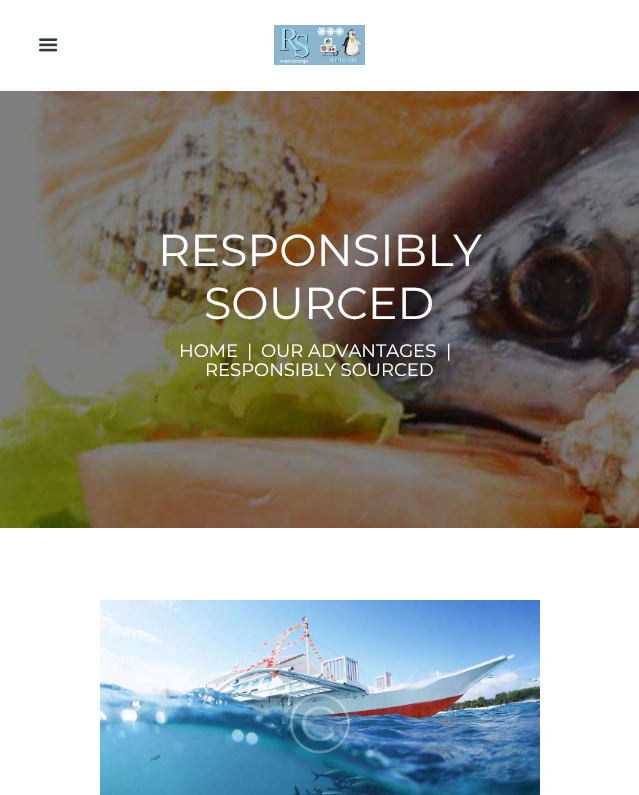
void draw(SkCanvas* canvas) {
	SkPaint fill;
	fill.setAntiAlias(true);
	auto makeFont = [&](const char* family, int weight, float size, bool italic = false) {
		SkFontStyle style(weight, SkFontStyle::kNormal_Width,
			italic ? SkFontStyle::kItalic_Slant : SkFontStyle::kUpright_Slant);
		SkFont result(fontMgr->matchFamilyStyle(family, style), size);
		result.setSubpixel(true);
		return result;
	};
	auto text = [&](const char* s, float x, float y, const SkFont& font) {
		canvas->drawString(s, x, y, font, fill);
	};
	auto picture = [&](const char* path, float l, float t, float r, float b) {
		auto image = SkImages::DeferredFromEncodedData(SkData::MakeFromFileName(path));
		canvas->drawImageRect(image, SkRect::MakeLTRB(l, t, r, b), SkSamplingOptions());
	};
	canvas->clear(0xFFFFFFFF);
	picture("image0.png", 39, 38, 58, 52);
	picture("image1.png", 274, 25, 365, 65);
	picture("image2.png", 0, 91, 639, 528);
	picture("image3.png", 100, 600, 540, 795);
	auto font1 = makeFont("Montserrat", 400, 44.5f);
	fill.setColor(0xFFFFFFFF);
	text("RESPONSIBLY", 158, 266, font1);
	text("SOURCED", 204, 319, font1);
	auto font2 = makeFont("Montserrat", 400, 18);
	text("HOME", 179, 357, font2);
	text("|", 247, 357, font2);
	text("OUR ADVANTAGES", 261, 357, font2);
	text("|", 446, 357, font2);
	text("RESPONSIBLY SOURCED", 205, 376, font2);
}
